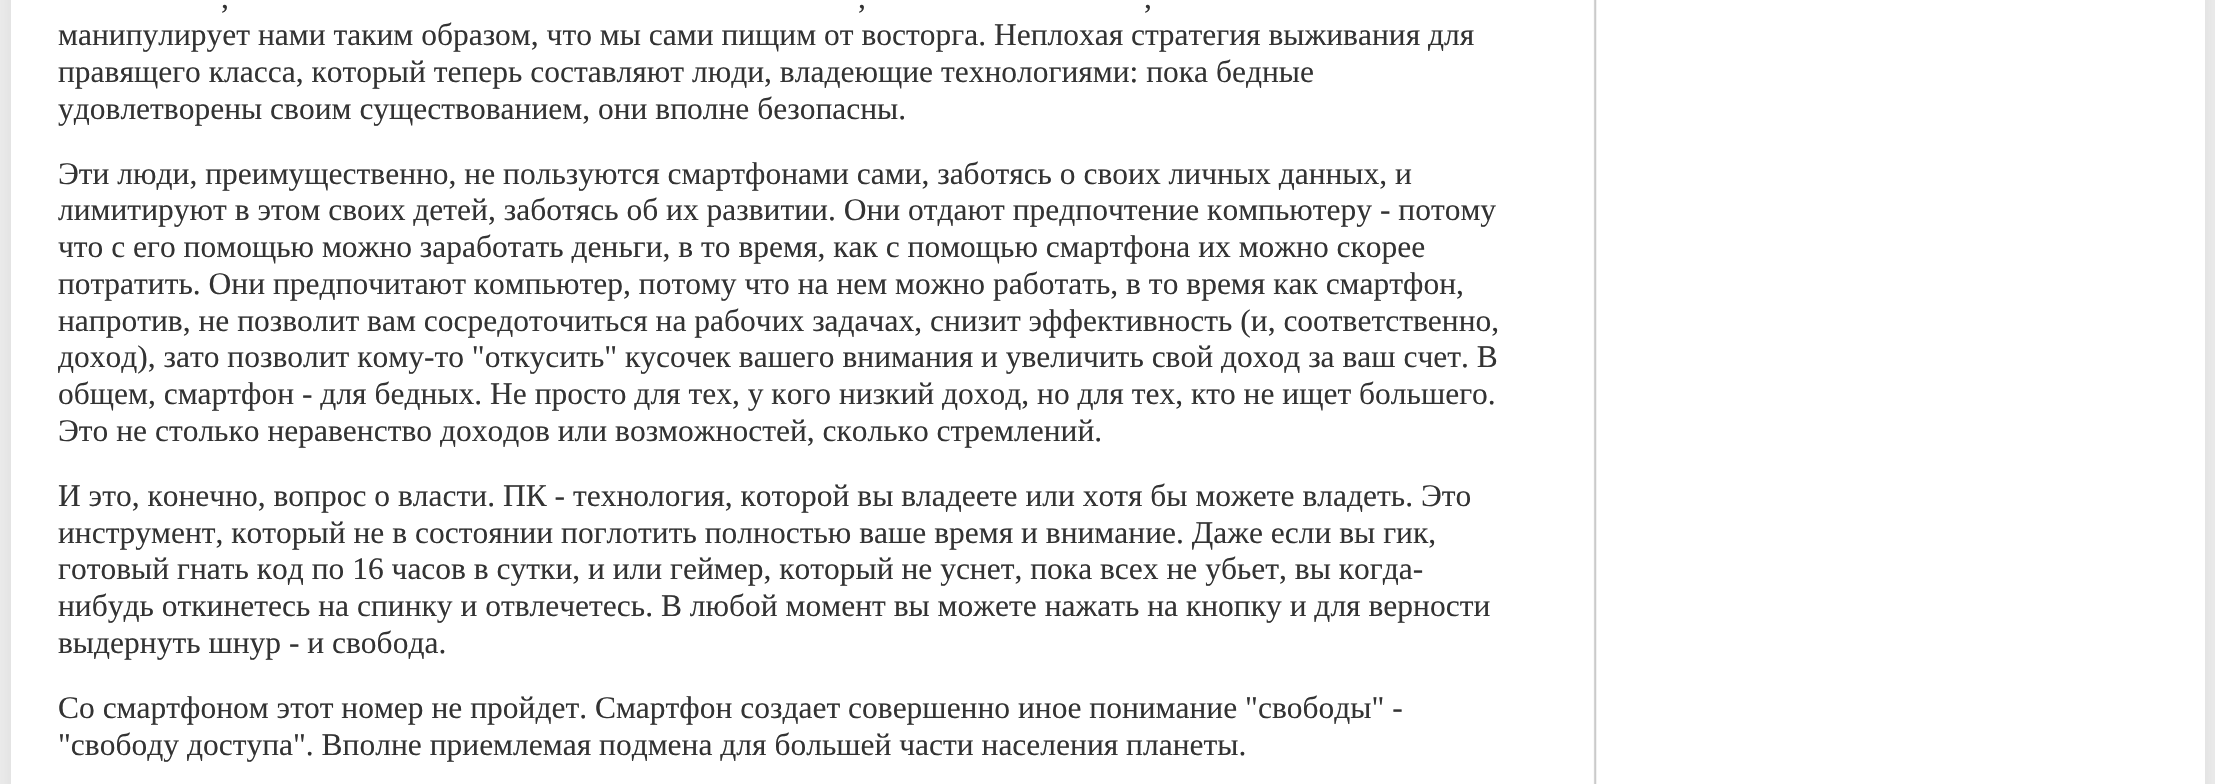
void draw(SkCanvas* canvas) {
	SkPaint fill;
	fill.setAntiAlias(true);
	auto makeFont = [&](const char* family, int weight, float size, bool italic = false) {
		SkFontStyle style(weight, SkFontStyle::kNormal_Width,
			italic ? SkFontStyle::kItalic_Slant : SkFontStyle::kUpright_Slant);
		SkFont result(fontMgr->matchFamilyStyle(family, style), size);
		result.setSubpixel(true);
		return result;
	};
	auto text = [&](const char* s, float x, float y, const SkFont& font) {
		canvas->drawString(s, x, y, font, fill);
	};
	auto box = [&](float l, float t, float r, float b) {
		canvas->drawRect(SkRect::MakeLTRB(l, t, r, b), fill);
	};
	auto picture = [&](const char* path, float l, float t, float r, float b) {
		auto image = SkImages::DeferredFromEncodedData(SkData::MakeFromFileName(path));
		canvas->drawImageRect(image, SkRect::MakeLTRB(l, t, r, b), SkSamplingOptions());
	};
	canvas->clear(0xFFF5F5F5);
	fill.setColor(0x24000000);
	fill.setMaskFilter(SkMaskFilter::MakeBlur(kNormal_SkBlurStyle, 18.5f));
	canvas->drawRect(SkRect::MakeLTRB(11, -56, 2205, 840), fill);
	fill.setMaskFilter(nullptr);
	fill.setColor(0xFFFFFFFF);
	box(11, 0, 2205, 784);
	picture("image0.png", 1593, 0, 1597, 784);
	auto font1 = makeFont("Liberation Serif", 400, 31.5f);
	fill.setColor(0xFF333333);
	text(",", 221, 8, font1);
	text(",", 858, 8, font1);
	text(",", 1144, 8, font1);
	text("манипулирует нами таким образом, что мы сами пищим от восторга. Неплохая стратегия выживания для", 58, 45, font1);
	text("правящего класса, который теперь составляют люди, владеющие технологиями: пока бедные", 58, 82, font1);
	text("удовлетворены своим существованием, они вполне безопасны.", 58, 119, font1);
	text("Эти люди, преимущественно, не пользуются смартфонами сами, заботясь о своих личных данных, и", 58, 184, font1);
	text("лимитируют в этом своих детей, заботясь об их развитии. Они отдают предпочтение компьютеру - потому", 58, 220, font1);
	text("что с его помощью можно заработать деньги, в то время, как с помощью смартфона их можно скорее", 58, 257, font1);
	text("потратить. Они предпочитают компьютер, потому что на нем можно работать, в то время как смартфон,", 58, 294, font1);
	text("напротив, не позволит вам сосредоточиться на рабочих задачах, снизит эффективность (и, соответственно,", 58, 331, font1);
	canvas->save();
	canvas->clipRect(SkRect::MakeLTRB(58, 0, 1554, 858));
	text("доход), зато позволит кому-то \"откусить\" кусочек вашего внимания и увеличить свой доход за ваш счет. В", 58, 367, font1);
	canvas->restore();
	text("общем, смартфон - для бедных. Не просто для тех, у кого низкий доход, но для тех, кто не ищет большего.", 58, 404, font1);
	text("Это не столько неравенство доходов или возможностей, сколько стремлений.", 58, 441, font1);
	text("И это, конечно, вопрос о власти. ПК - технология, которой вы владеете или хотя бы можете владеть. Это", 58, 506, font1);
	text("инструмент, который не в состоянии поглотить полностью ваше время и внимание. Даже если вы гик,", 58, 543, font1);
	text("готовый гнать код по 16 часов в сутки, и или геймер, который не уснет, пока всех не убьет, вы когда-", 58, 579, font1);
	text("нибудь откинетесь на спинку и отвлечетесь. В любой момент вы можете нажать на кнопку и для верности", 58, 616, font1);
	text("выдернуть шнур - и свобода.", 58, 653, font1);
	text("Со смартфоном этот номер не пройдет. Смартфон создает совершенно иное понимание \"свободы\" -", 58, 718, font1);
	text("\"свободу доступа\". Вполне приемлемая подмена для большей части населения планеты.", 58, 755, font1);
}
